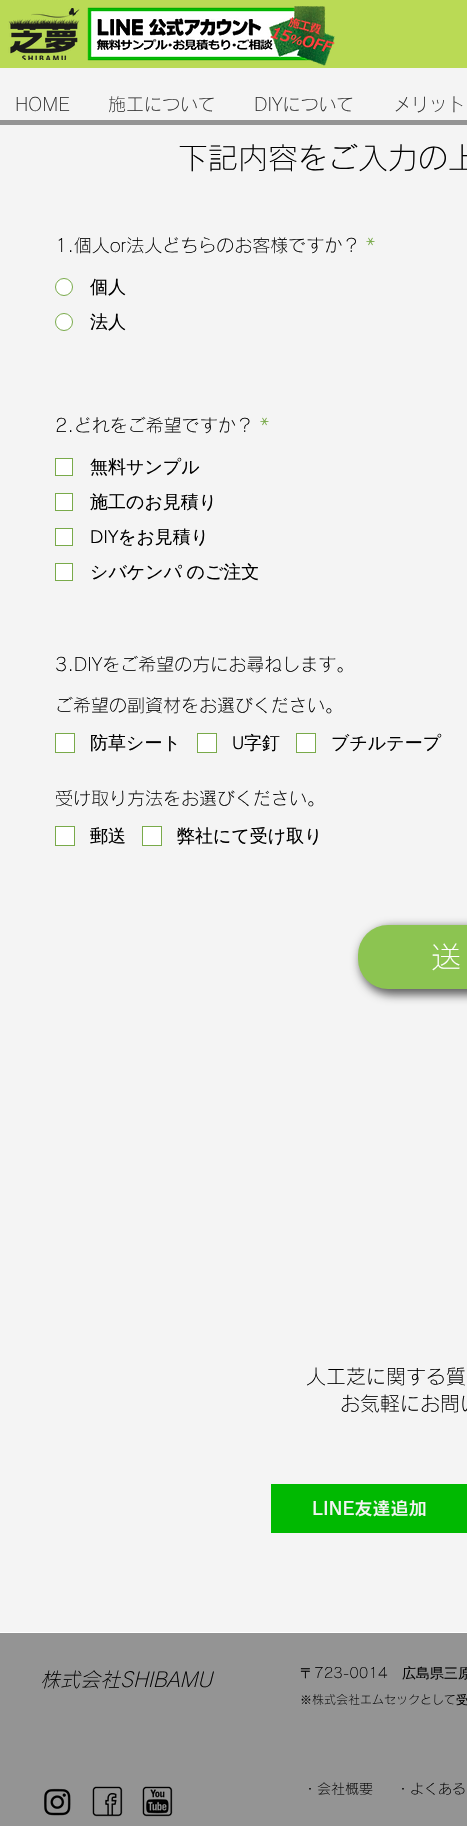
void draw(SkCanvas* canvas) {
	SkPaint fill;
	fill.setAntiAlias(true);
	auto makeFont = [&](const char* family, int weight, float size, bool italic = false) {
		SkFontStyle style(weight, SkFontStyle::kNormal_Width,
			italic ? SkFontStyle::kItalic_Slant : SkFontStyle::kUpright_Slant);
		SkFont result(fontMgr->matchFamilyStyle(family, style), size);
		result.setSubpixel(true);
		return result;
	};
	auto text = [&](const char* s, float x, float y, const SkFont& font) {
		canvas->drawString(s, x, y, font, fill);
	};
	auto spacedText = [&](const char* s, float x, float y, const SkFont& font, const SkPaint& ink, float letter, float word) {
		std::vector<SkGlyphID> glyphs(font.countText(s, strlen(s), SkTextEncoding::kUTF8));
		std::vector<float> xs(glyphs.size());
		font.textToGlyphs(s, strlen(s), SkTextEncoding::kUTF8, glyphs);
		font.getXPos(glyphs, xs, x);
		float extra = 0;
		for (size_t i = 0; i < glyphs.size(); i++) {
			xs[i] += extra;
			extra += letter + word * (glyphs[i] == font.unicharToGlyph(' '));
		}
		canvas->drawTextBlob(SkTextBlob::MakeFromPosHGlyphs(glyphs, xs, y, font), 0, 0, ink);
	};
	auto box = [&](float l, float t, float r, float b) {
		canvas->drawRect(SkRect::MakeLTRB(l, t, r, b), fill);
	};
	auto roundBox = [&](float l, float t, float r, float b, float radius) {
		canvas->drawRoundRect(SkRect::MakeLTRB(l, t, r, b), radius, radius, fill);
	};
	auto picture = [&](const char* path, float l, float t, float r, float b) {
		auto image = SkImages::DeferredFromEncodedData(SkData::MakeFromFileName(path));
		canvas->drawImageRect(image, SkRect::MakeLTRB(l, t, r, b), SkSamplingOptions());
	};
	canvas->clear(0xFFFFFFFF);
	fill.setColor(0xFFF4F4F4);
	box(0, 68, 467, 120);
	fill.setColor(0xFF949494);
	box(0, 120, 467, 125);
	fill.setColor(0xFFBADA55);
	box(0, 0, 467, 68);
	picture("image0.png", 8, 8, 80, 60);
	picture("image1.png", 87, 6, 335, 66);
	fill.setColor(0xFFF4F4F4);
	box(0, 125, 467, 1632);
	fill.setColor(0xFFFFFFFF);
	canvas->drawCircle(64, 287, 8.5f, fill);
	fill.setStyle(SkPaint::kStroke_Style);
	fill.setStrokeWidth(1);
	fill.setColor(0xFF79AA4A);
	canvas->drawCircle(64, 287, 8.5f, fill);
	fill.setStyle(SkPaint::kFill_Style);
	fill.setColor(0xFFFFFFFF);
	canvas->drawCircle(64, 322, 8.5f, fill);
	fill.setStyle(SkPaint::kStroke_Style);
	fill.setColor(0xFF79AA4A);
	canvas->drawCircle(64, 322, 8.5f, fill);
	fill.setStyle(SkPaint::kFill_Style);
	fill.setColor(0xFFFFFFFF);
	canvas->drawRect(SkRect::MakeLTRB(55.5f, 458.5f, 72.5f, 475.5f), fill);
	fill.setStyle(SkPaint::kStroke_Style);
	fill.setColor(0xFF79AA4A);
	canvas->drawRect(SkRect::MakeLTRB(55.5f, 458.5f, 72.5f, 475.5f), fill);
	fill.setStyle(SkPaint::kFill_Style);
	fill.setColor(0xFFFFFFFF);
	canvas->drawRect(SkRect::MakeLTRB(55.5f, 493.5f, 72.5f, 510.5f), fill);
	fill.setStyle(SkPaint::kStroke_Style);
	fill.setColor(0xFF79AA4A);
	canvas->drawRect(SkRect::MakeLTRB(55.5f, 493.5f, 72.5f, 510.5f), fill);
	fill.setStyle(SkPaint::kFill_Style);
	fill.setColor(0xFFFFFFFF);
	canvas->drawRect(SkRect::MakeLTRB(55.5f, 528.5f, 72.5f, 545.5f), fill);
	fill.setStyle(SkPaint::kStroke_Style);
	fill.setColor(0xFF79AA4A);
	canvas->drawRect(SkRect::MakeLTRB(55.5f, 528.5f, 72.5f, 545.5f), fill);
	fill.setStyle(SkPaint::kFill_Style);
	fill.setColor(0xFFFFFFFF);
	canvas->drawRect(SkRect::MakeLTRB(55.5f, 563.5f, 72.5f, 580.5f), fill);
	fill.setStyle(SkPaint::kStroke_Style);
	fill.setColor(0xFF79AA4A);
	canvas->drawRect(SkRect::MakeLTRB(55.5f, 563.5f, 72.5f, 580.5f), fill);
	fill.setStyle(SkPaint::kFill_Style);
	fill.setColor(0xFFFFFFFF);
	canvas->drawRect(SkRect::MakeLTRB(55.5f, 733.5f, 74.5f, 752.5f), fill);
	fill.setStyle(SkPaint::kStroke_Style);
	fill.setColor(0xFF79AA4A);
	canvas->drawRect(SkRect::MakeLTRB(55.5f, 733.5f, 74.5f, 752.5f), fill);
	fill.setStyle(SkPaint::kFill_Style);
	fill.setColor(0xFFFFFFFF);
	canvas->drawRect(SkRect::MakeLTRB(197.5f, 733.5f, 216.5f, 752.5f), fill);
	fill.setStyle(SkPaint::kStroke_Style);
	fill.setColor(0xFF79AA4A);
	canvas->drawRect(SkRect::MakeLTRB(197.5f, 733.5f, 216.5f, 752.5f), fill);
	fill.setStyle(SkPaint::kFill_Style);
	fill.setColor(0xFFFFFFFF);
	canvas->drawRect(SkRect::MakeLTRB(296.5f, 733.5f, 315.5f, 752.5f), fill);
	fill.setStyle(SkPaint::kStroke_Style);
	fill.setColor(0xFF79AA4A);
	canvas->drawRect(SkRect::MakeLTRB(296.5f, 733.5f, 315.5f, 752.5f), fill);
	fill.setStyle(SkPaint::kFill_Style);
	fill.setColor(0xFFFFFFFF);
	canvas->drawRect(SkRect::MakeLTRB(55.5f, 826.5f, 74.5f, 845.5f), fill);
	fill.setStyle(SkPaint::kStroke_Style);
	fill.setColor(0xFF79AA4A);
	canvas->drawRect(SkRect::MakeLTRB(55.5f, 826.5f, 74.5f, 845.5f), fill);
	fill.setStyle(SkPaint::kFill_Style);
	fill.setColor(0xFFFFFFFF);
	canvas->drawRect(SkRect::MakeLTRB(142.5f, 826.5f, 161.5f, 845.5f), fill);
	fill.setStyle(SkPaint::kStroke_Style);
	fill.setColor(0xFF79AA4A);
	canvas->drawRect(SkRect::MakeLTRB(142.5f, 826.5f, 161.5f, 845.5f), fill);
	fill.setStyle(SkPaint::kFill_Style);
	fill.setColor(0x99000000);
	fill.setMaskFilter(SkMaskFilter::MakeBlur(kNormal_SkBlurStyle, 5));
	canvas->drawRoundRect(SkRect::MakeLTRB(360, 927, 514, 995), 32, 32, fill);
	fill.setMaskFilter(nullptr);
	fill.setColor(0xFF8CC451);
	roundBox(358, 925, 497, 989, 30);
	fill.setColor(0xFF00B901);
	box(271, 1484, 467, 1533);
	fill.setColor(0xFF949494);
	box(0, 1633, 467, 1826);
	picture("image2.png", 44, 1788, 71, 1816);
	picture("image3.png", 92, 1786, 123, 1817);
	picture("image4.png", 142, 1786, 173, 1817);
	auto font1 = makeFont("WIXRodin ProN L", 300, 18);
	fill.setColor(0xFF333333);
	text("HOME", 15, 111, font1);
	text("施工について", 108, 111, font1);
	text("DIYについて", 254, 111, font1);
	text("メリット", 393, 111, font1);
	auto font2 = makeFont("WIXRodin ProN L", 300, 30);
	fill.setColor(0xFF000000);
	text("下記内容をご入力の上", 178, 169, font2);
	text("1.個人or法人どちらのお客様ですか？", 55, 252, font1);
	fill.setColor(0xFF79AA4A);
	text("*", 366, 252, font1);
	auto font3 = makeFont("WenQuanYi Zen Hei", 500, 18);
	fill.setColor(0xFF000000);
	text("個人", 90, 293, font3);
	text("法人", 90, 328, font3);
	text("2.どれをご希望ですか？", 55, 432, font1);
	fill.setColor(0xFF79AA4A);
	text("*", 260, 432, font1);
	fill.setColor(0xFF000000);
	text("無料サンプル", 90, 473, font3);
	text("施工のお見積り", 90, 508, font3);
	auto font4 = makeFont("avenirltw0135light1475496", 300, 18);
	text("DIY", 90, 543, font4);
	text("をお見積り", 118, 543, font3);
	spacedText("シバケンパ のご注文", 90, 578, font3, fill, 0, -1);
	text("3.DIYをご希望の方にお尋ねします。", 55, 671, font1);
	text("ご希望の副資材をお選びください。", 55, 712, font1);
	text("防草シート", 90, 749, font3);
	text("U", 232, 749, font4);
	text("字釘", 244, 749, font3);
	text("ブチルテープ", 331, 749, font3);
	text("受け取り方法をお選びください。", 55, 805, font1);
	text("郵送", 90, 842, font3);
	text("弊社にて受け取り", 177, 842, font3);
	fill.setColor(0xFFFFFFFF);
	text("送", 431, 968, font2);
	auto font5 = makeFont("WIXRodin ProN L", 300, 20);
	fill.setColor(0xFF000000);
	text("人工芝に関する質", 306, 1384, font5);
	text("お気軽にお問い", 340, 1411, font5);
	auto font6 = makeFont("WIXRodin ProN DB", 600, 18);
	fill.setColor(0xFFF4F4F4);
	text("LINE友達追加", 312, 1515, font6);
	auto font7 = makeFont("WIXRodin ProN L", 300, 20, true);
	fill.setColor(0xFF000000);
	text("株式会社SHIBAMU", 40, 1687, font7);
	auto font8 = makeFont("WenQuanYi Zen Hei", 500, 14);
	text("〒", 300, 1678, font8);
	auto font9 = makeFont("WIXRodin ProN L", 300, 14);
	text("723-0014", 314, 1678, font9);
	text("広島県三原", 402, 1678, font8);
	auto font10 = makeFont("WenQuanYi Zen Hei", 500, 12);
	text("※", 300, 1704, font10);
	auto font11 = makeFont("WIXRodin ProN L", 300, 12);
	text("株式会社エムセックとして", 312, 1704, font11);
	text("受", 456, 1704, font10);
	text("・会社概要", 303, 1794, font9);
	text("・よくある", 396, 1794, font9);
}
